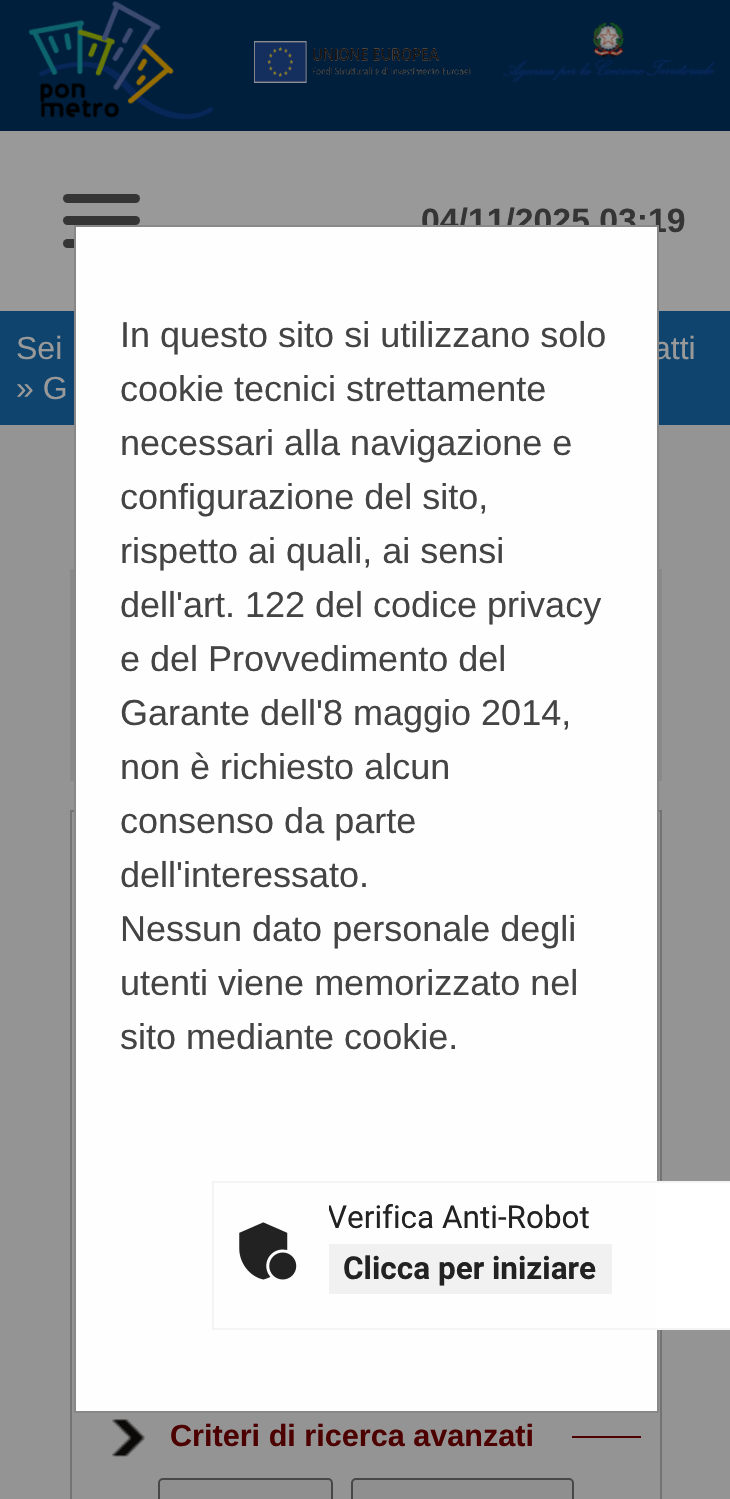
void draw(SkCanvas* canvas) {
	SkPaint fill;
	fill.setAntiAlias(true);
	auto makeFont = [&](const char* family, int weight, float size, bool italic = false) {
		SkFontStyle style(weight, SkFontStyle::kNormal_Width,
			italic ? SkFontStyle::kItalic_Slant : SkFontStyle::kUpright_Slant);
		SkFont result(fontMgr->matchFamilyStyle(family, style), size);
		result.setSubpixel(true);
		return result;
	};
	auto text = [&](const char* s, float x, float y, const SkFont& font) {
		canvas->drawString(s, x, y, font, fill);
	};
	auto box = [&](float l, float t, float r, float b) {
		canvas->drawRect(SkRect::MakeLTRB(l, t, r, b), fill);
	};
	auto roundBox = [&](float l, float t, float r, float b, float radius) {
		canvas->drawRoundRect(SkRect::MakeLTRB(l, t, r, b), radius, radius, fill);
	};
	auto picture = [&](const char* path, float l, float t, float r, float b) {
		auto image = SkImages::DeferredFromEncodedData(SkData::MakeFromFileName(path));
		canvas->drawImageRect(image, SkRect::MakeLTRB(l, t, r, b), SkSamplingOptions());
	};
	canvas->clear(0xFF999999);
	fill.setColor(0xFF001F3D);
	box(0, 0, 730, 131);
	picture("image0.png", 28, 1, 214, 120);
	picture("image1.png", 254, 41, 471, 83);
	picture("image2.png", 502, 22, 715, 83);
	fill.setColor(0xFF353535);
	roundBox(63, 194, 140, 203, 4.5f);
	roundBox(63, 216, 140, 225, 4.5f);
	roundBox(63, 239, 140, 248, 4.5f);
	fill.setColor(0xFF0E446E);
	box(0, 311, 730, 425);
	fill.setColor(0xFF949494);
	box(0, 425, 730, 1499);
	fill.setColor(0xFF8A8A8A);
	box(70, 569, 662, 781);
	fill.setStyle(SkPaint::kStroke_Style);
	fill.setStrokeWidth(2);
	fill.setColor(0xFF737373);
	canvas->drawRect(SkRect::MakeLTRB(71, 811, 661, 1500), fill);
	picture("image4.png", 112, 1419, 145, 1457);
	fill.setStyle(SkPaint::kFill_Style);
	fill.setColor(0xFF4D0000);
	box(572, 1436, 641, 1438);
	fill.setColor(0xFF8F8F8F);
	canvas->drawRoundRect(SkRect::MakeLTRB(159, 1479, 332, 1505), 4, 4, fill);
	fill.setStyle(SkPaint::kStroke_Style);
	fill.setColor(0xFF474747);
	canvas->drawRoundRect(SkRect::MakeLTRB(159, 1479, 332, 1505), 4, 4, fill);
	fill.setStyle(SkPaint::kFill_Style);
	fill.setColor(0xFF8F8F8F);
	canvas->drawRoundRect(SkRect::MakeLTRB(352, 1479, 573, 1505), 4, 4, fill);
	fill.setStyle(SkPaint::kStroke_Style);
	fill.setColor(0xFF474747);
	canvas->drawRoundRect(SkRect::MakeLTRB(352, 1479, 573, 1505), 4, 4, fill);
	auto font1 = makeFont("Liberation Sans", 700, 33.75f);
	fill.setStyle(SkPaint::kFill_Style);
	fill.setColor(0xFF353535);
	text("04/11/2025 03:19", 421, 232, font1);
	auto font2 = makeFont("Liberation Sans", 400, 32);
	fill.setColor(0xFF999999);
	text("Sei", 16, 359, font2);
	text("atti", 653, 359, font2);
	text("» G", 16, 399, font2);
	fill.setColor(0xFFFEFEFE);
	canvas->drawRect(SkRect::MakeLTRB(75, 226, 658, 1412), fill);
	fill.setStyle(SkPaint::kStroke_Style);
	fill.setColor(0xFF888888);
	canvas->drawRect(SkRect::MakeLTRB(75, 226, 658, 1412), fill);
	auto font3 = makeFont("Liberation Sans", 400, 36);
	fill.setStyle(SkPaint::kFill_Style);
	fill.setColor(0xFF444444);
	text("In questo sito si utilizzano solo", 120, 347, font3);
	text("cookie tecnici strettamente", 120, 401, font3);
	text("necessari alla navigazione e", 120, 455, font3);
	text("configurazione del sito,", 120, 509, font3);
	text("rispetto ai quali, ai sensi", 120, 563, font3);
	text("dell'art. 122 del codice privacy", 120, 617, font3);
	text("e del Provvedimento del", 120, 671, font3);
	text("Garante dell'8 maggio 2014,", 120, 725, font3);
	text("non è richiesto alcun", 120, 779, font3);
	text("consenso da parte", 120, 833, font3);
	text("dell'interessato.", 120, 887, font3);
	text("Nessun dato personale degli", 120, 941, font3);
	text("utenti viene memorizzato nel", 120, 995, font3);
	text("sito mediante cookie.", 120, 1049, font3);
	fill.setColor(0xFFFFFFFF);
	box(657, 1183, 730, 1328);
	fill.setStyle(SkPaint::kStroke_Style);
	fill.setColor(0xFFF4F4F4);
	canvas->drawRect(SkRect::MakeLTRB(213, 1182, 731, 1329), fill);
	picture("image3.png", 239, 1222, 297, 1280);
	canvas->save();
	canvas->clipRect(SkRect::MakeLTRB(329, 1199, 612, 1294));
	auto font4 = makeFont("Roboto", 400, 31.5f);
	fill.setStyle(SkPaint::kFill_Style);
	fill.setColor(0xFF222222);
	text("Verifica Anti-Robot", 327, 1228, font4);
	canvas->restore();
	fill.setColor(0xFFF1F1F1);
	box(329, 1244, 612, 1294);
	auto font5 = makeFont("Roboto", 700, 31.5f);
	fill.setColor(0xFF222222);
	text("Clicca per iniziare", 343, 1279, font5);
	auto font6 = makeFont("Liberation Sans", 700, 30.6f);
	fill.setColor(0xFF4D0000);
	text("Criteri di ricerca avanzati", 170, 1446, font6);
}
